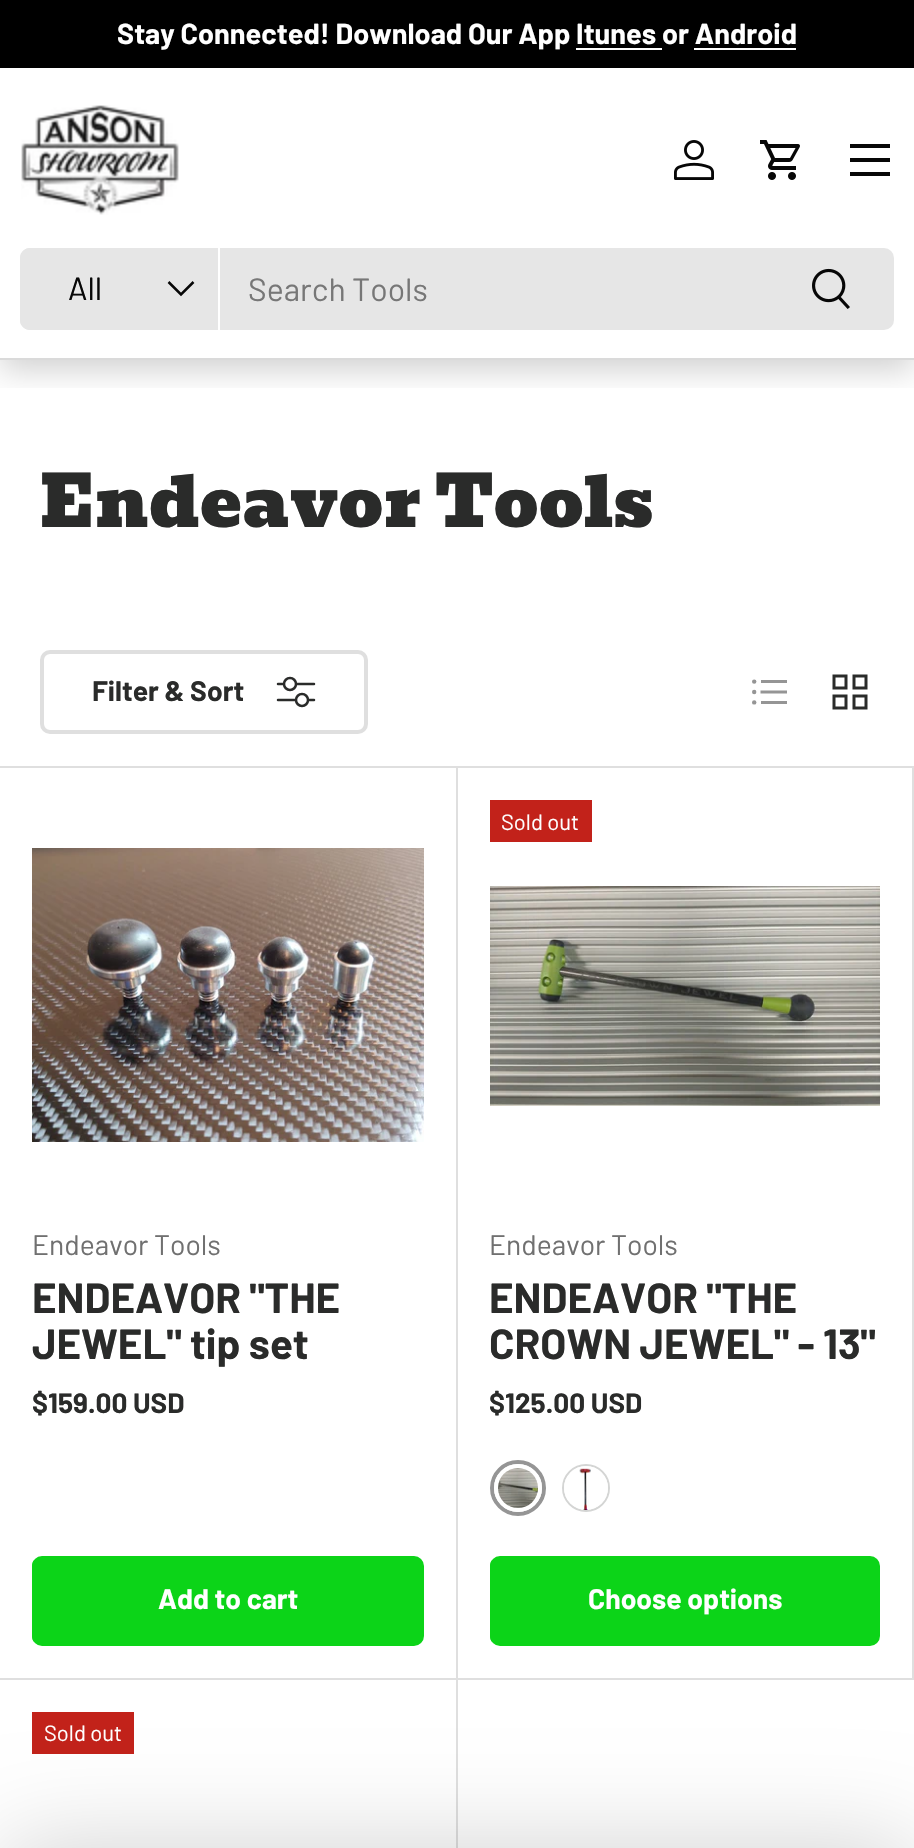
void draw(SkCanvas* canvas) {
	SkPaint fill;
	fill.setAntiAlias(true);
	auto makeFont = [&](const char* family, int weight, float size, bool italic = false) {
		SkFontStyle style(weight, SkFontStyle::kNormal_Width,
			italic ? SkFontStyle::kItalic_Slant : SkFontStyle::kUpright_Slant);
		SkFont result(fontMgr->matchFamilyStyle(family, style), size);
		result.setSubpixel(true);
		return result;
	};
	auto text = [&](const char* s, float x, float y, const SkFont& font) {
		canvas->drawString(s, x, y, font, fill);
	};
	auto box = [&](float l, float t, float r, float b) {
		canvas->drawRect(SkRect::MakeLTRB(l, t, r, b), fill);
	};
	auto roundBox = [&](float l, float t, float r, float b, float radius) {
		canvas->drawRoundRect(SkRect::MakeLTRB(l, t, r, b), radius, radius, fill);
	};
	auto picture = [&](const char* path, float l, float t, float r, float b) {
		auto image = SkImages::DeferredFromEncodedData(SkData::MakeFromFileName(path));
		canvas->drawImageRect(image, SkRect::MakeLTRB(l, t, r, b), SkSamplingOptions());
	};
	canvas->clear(0xFFFFFFFF);
	canvas->save();
	canvas->clipRect(SkRect::MakeLTRB(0, 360, 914, 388));
	fill.setColor(0x2E000000);
	fill.setMaskFilter(SkMaskFilter::MakeBlur(kNormal_SkBlurStyle, 15));
	canvas->drawRect(SkRect::MakeLTRB(0, 78, 914, 370), fill);
	fill.setMaskFilter(nullptr);
	canvas->restore();
	fill.setColor(0xFF000000);
	box(0, 0, 914, 68);
	fill.setColor(0xFFFFFFFF);
	box(576, 48, 662, 50);
	box(694, 48, 796, 50);
	fill.setColor(0xFFDADADA);
	box(0, 358, 914, 360);
	picture("image0.png", 21, 105, 179, 215);
	picture("image1.png", 674, 140, 714, 180);
	picture("image2.png", 760, 140, 800, 180);
	fill.setColor(0xFF070707);
	box(850, 144, 890, 148);
	box(850, 172, 890, 176);
	box(850, 158, 890, 162);
	fill.setColor(0xFFE6E6E6);
	roundBox(20, 248, 894, 330, 10);
	canvas->drawPath(SkPathBuilder().moveTo(30, 248).lineTo(220, 248).lineTo(220, 330).lineTo(30, 330).cubicTo(24.5f, 330, 20, 325.5f, 20, 320).lineTo(20, 258).cubicTo(20, 252.5f, 24.5f, 248, 30, 248).close().detach(), fill);
	fill.setColor(0xFFFFFFFF);
	box(218, 248, 220, 330);
	fill.setStyle(SkPaint::kStroke_Style);
	fill.setStrokeWidth(2.5f);
	fill.setColor(0xFF070707);
	canvas->drawPath(SkPathBuilder().moveTo(193.5f, 282).lineTo(181, 294.5f).lineTo(168.5f, 282).detach(), fill);
	picture("image3.png", 812, 268, 850, 309);
	fill.setStrokeWidth(4);
	fill.setColor(0xFFDFDFDF);
	canvas->drawRoundRect(SkRect::MakeLTRB(42, 652, 366, 732), 8, 8, fill);
	fill.setStrokeWidth(2.5f);
	fill.setStrokeCap(SkPaint::kRound_Cap);
	fill.setStrokeJoin(SkPaint::kRound_Join);
	fill.setColor(0xFF2A2B2A);
	canvas->drawPath(SkPathBuilder().moveTo(278, 684).lineTo(314, 684).moveTo(278, 700).lineTo(314, 700).detach(), fill);
	fill.setStyle(SkPaint::kFill_Style);
	fill.setColor(0xFFFFFFFF);
	canvas->drawCircle(290, 684, 6, fill);
	fill.setStyle(SkPaint::kStroke_Style);
	fill.setStrokeCap(SkPaint::kButt_Cap);
	fill.setStrokeJoin(SkPaint::kMiter_Join);
	fill.setColor(0xFF2A2B2A);
	canvas->drawCircle(290, 684, 6, fill);
	fill.setStyle(SkPaint::kFill_Style);
	fill.setColor(0xFFFFFFFF);
	canvas->drawCircle(302, 700, 6, fill);
	fill.setStyle(SkPaint::kStroke_Style);
	fill.setColor(0xFF2A2B2A);
	canvas->drawCircle(302, 700, 6, fill);
	fill.setStyle(SkPaint::kFill_Style);
	fill.setColor(0xFF959595);
	canvas->drawCircle(754.2f, 681.6f, 2.2f, fill);
	box(761, 680, 787, 683);
	canvas->drawCircle(754.2f, 692, 2.2f, fill);
	fill.setStyle(SkPaint::kStroke_Style);
	fill.setStrokeWidth(3);
	canvas->drawPath(SkPathBuilder().moveTo(760.5f, 692).lineTo(787, 692).detach(), fill);
	fill.setStyle(SkPaint::kFill_Style);
	canvas->drawCircle(754.2f, 702.4f, 2.2f, fill);
	box(761, 701, 787, 704);
	fill.setStyle(SkPaint::kStroke_Style);
	fill.setColor(0xFF2A2B2A);
	canvas->drawPath(SkPathBuilder().moveTo(834, 676).lineTo(846, 676).lineTo(846, 688).lineTo(834, 688).close().moveTo(854, 676).lineTo(866, 676).lineTo(866, 688).lineTo(854, 688).close().moveTo(834, 696).lineTo(846, 696).lineTo(846, 708).lineTo(834, 708).close().moveTo(854, 696).lineTo(866, 696).lineTo(866, 708).lineTo(854, 708).close().detach(), fill);
	fill.setStyle(SkPaint::kFill_Style);
	fill.setColor(0xFFDFDFDF);
	box(0, 766, 914, 768);
	canvas->drawPath(SkPathBuilder().moveTo(458, 768).lineTo(458, 1680).lineTo(456, 1678).lineTo(456, 768).close().detach(), fill);
	fill.setColor(0x262A2B2A);
	canvas->drawPath(SkPathBuilder().moveTo(458, 1680).lineTo(0, 1680).lineTo(0, 1678).lineTo(456, 1678).close().detach(), fill);
	picture("image4.png", 32, 848, 424, 1142);
	canvas->save();
	canvas->clipPath(SkPathBuilder().moveTo(42, 1556).lineTo(414, 1556).cubicTo(419.5f, 1556, 424, 1560.5f, 424, 1566).lineTo(424, 1636).cubicTo(424, 1641.5f, 419.5f, 1646, 414, 1646).lineTo(42, 1646).cubicTo(36.5f, 1646, 32, 1641.5f, 32, 1636).lineTo(32, 1566).cubicTo(32, 1560.5f, 36.5f, 1556, 42, 1556).close().detach(), true);
	{
		const SkColor colors[] = {0xFF3DDC47, 0xFF0CD418, 0xFF0CD418};
		const float stops[] = {0.6f, 0.6f, 1};
		const SkPoint ends[] = {{-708, 1463}, {396, 1739}};
		fill.setShader(SkGradientShader::MakeLinear(ends, colors, stops, 3, SkTileMode::kClamp));
		fill.setAlpha(255);
	}
	box(32, 1560, 420, 1642);
	canvas->restore();
	fill.setStyle(SkPaint::kStroke_Style);
	fill.setStrokeWidth(4);
	fill.setShader(nullptr);
	fill.setColor(0xFF0CD418);
	canvas->drawRoundRect(SkRect::MakeLTRB(34, 1558, 422, 1644), 8, 8, fill);
	fill.setStyle(SkPaint::kFill_Style);
	fill.setColor(0xFFDFDFDF);
	canvas->drawPath(SkPathBuilder().moveTo(914, 768).lineTo(914, 1680).lineTo(912, 1678).lineTo(912, 768).close().detach(), fill);
	fill.setColor(0x262A2B2A);
	canvas->drawPath(SkPathBuilder().moveTo(914, 1680).lineTo(458, 1680).lineTo(458, 1678).lineTo(912, 1678).close().detach(), fill);
	fill.setColor(0xFFC2221A);
	box(490, 800, 592, 842);
	picture("image5.png", 490, 886, 880, 1106);
	fill.setStyle(SkPaint::kStroke_Style);
	fill.setColor(0xFF959595);
	canvas->drawCircle(518, 1488, 26, fill);
	fill.setColor(0xFFFFFFFF);
	canvas->drawCircle(518, 1488, 22, fill);
	picture("image6.png", 498, 1468, 538, 1508);
	fill.setStrokeWidth(2);
	fill.setColor(0xFFD4D5D4);
	canvas->drawCircle(586, 1488, 23, fill);
	fill.setStyle(SkPaint::kFill_Style);
	fill.setColor(0xFFFFFFFF);
	canvas->drawCircle(586, 1488, 22, fill);
	picture("image7.png", 579, 1468, 591, 1510);
	canvas->save();
	canvas->clipPath(SkPathBuilder().moveTo(500, 1556).lineTo(870, 1556).cubicTo(875.5f, 1556, 880, 1560.5f, 880, 1566).lineTo(880, 1636).cubicTo(880, 1641.5f, 875.5f, 1646, 870, 1646).lineTo(500, 1646).cubicTo(494.5f, 1646, 490, 1641.5f, 490, 1636).lineTo(490, 1566).cubicTo(490, 1560.5f, 494.5f, 1556, 500, 1556).close().detach(), true);
	{
		const SkColor colors[] = {0xFF3DDC47, 0xFF0CD418, 0xFF0CD418};
		const float stops[] = {0.6f, 0.6f, 1};
		const SkPoint ends[] = {{-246, 1464}, {852, 1738}};
		fill.setShader(SkGradientShader::MakeLinear(ends, colors, stops, 3, SkTileMode::kClamp));
		fill.setAlpha(255);
	}
	box(490, 1560, 876, 1642);
	canvas->restore();
	fill.setStyle(SkPaint::kStroke_Style);
	fill.setStrokeWidth(4);
	fill.setShader(nullptr);
	fill.setColor(0xFF0CD418);
	canvas->drawRoundRect(SkRect::MakeLTRB(492, 1558, 878, 1644), 8, 8, fill);
	fill.setStyle(SkPaint::kFill_Style);
	fill.setColor(0xFFDFDFDF);
	canvas->drawPath(SkPathBuilder().moveTo(458, 1680).lineTo(458, 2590).lineTo(456, 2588).lineTo(456, 1680).close().detach(), fill);
	fill.setColor(0xFFC2221A);
	box(32, 1712, 134, 1754);
	fill.setColor(0x2E000000);
	fill.setMaskFilter(SkMaskFilter::MakeBlur(kNormal_SkBlurStyle, 50));
	canvas->drawRoundRect(SkRect::MakeLTRB(2, 1848, 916, 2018), 20, 20, fill);
	fill.setMaskFilter(nullptr);
	auto font1 = makeFont("Barlow", 700, 28.8f);
	fill.setColor(0xFFFFFFFF);
	text("Stay Connected! Download Our App Itunes or Android", 117, 44, font1);
	auto font2 = makeFont("Barlow", 400, 32);
	fill.setColor(0xFF070707);
	text("All", 68, 300, font2);
	fill.setColor(0xFF777777);
	text("Search Tools", 248, 301, font2);
	auto font3 = makeFont("Bevan", 400, 70);
	fill.setColor(0xFF2A2B2A);
	text("Endeavor Tools", 40, 527, font3);
	auto font4 = makeFont("Barlow", 700, 28.25f);
	text("Filter & Sort", 92, 701, font4);
	auto font5 = makeFont("Barlow", 400, 28.25f);
	fill.setColor(0xFF707070);
	text("Endeavor Tools", 32, 1255, font5);
	auto font6 = makeFont("Barlow", 700, 42);
	fill.setColor(0xFF2A2B2A);
	text("ENDEAVOR \"THE", 32, 1313, font6);
	text("JEWEL\" tip set", 32, 1359, font6);
	auto font7 = makeFont("Barlow", 700, 28);
	text("$159.00 USD", 32, 1413, font7);
	fill.setColor(0xFFFFFFFF);
	text("Add to cart", 158, 1609, font4);
	auto font8 = makeFont("Barlow", 400, 22);
	text("Sold out", 501, 830, font8);
	fill.setColor(0xFF707070);
	text("Endeavor Tools", 489, 1255, font5);
	fill.setColor(0xFF2A2B2A);
	text("ENDEAVOR \"THE", 489, 1313, font6);
	text("CROWN JEWEL\" - 13\"", 489, 1359, font6);
	text("$125.00 USD", 489, 1413, font7);
	fill.setColor(0xFFFFFFFF);
	text("Choose options", 588, 1609, font4);
	text("Sold out", 44, 1741, font8);
}
